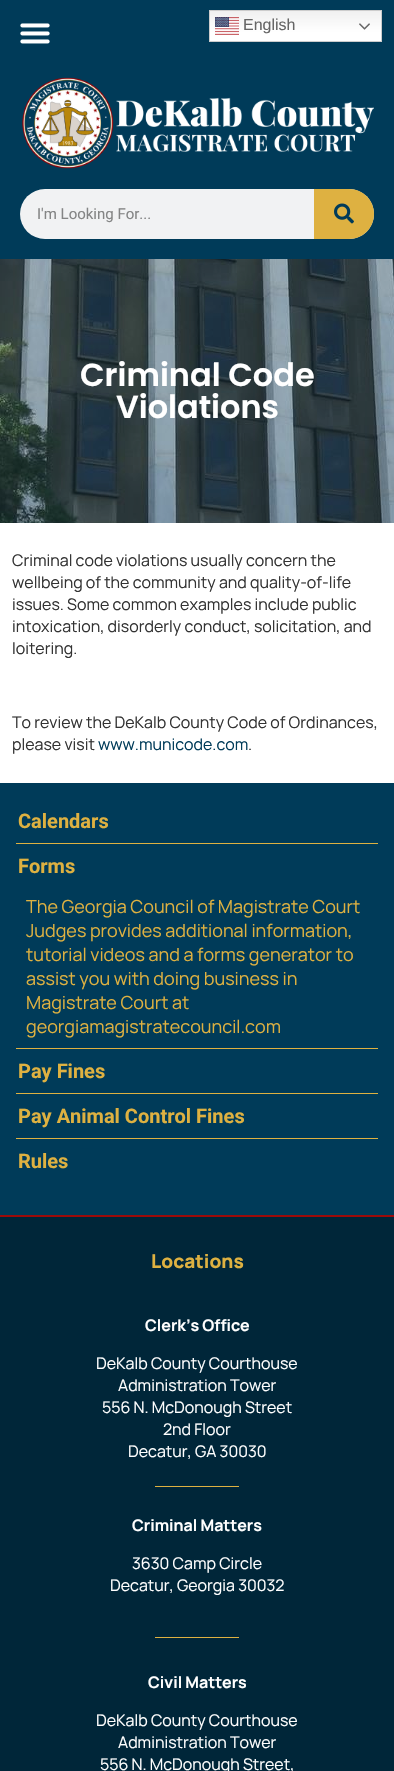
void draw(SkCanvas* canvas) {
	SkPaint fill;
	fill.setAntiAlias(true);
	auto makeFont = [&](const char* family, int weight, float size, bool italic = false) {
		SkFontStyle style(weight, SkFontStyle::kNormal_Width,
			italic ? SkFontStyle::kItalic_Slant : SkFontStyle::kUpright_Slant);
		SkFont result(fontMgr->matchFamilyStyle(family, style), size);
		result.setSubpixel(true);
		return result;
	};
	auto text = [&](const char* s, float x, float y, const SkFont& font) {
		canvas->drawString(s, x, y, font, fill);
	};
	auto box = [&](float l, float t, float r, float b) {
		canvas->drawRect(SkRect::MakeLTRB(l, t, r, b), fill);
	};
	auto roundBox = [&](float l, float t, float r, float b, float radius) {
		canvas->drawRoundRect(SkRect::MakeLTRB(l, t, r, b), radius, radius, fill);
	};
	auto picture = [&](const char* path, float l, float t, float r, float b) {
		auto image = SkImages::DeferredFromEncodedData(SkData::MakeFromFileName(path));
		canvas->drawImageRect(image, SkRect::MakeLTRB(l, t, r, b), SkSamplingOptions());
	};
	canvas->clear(0xFFFFFFFF);
	fill.setColor(0xFF003B59);
	box(0, 0, 394, 259);
	picture("image0.png", 20, 23, 50, 44);
	{
		const SkColor colors[] = {0xFFEFEFEF, 0xFFFFFFFF};
		const float stops[] = {0, 0.7f};
		const SkPoint ends[] = {{296, 10}, {296, 42}};
		fill.setShader(SkGradientShader::MakeLinear(ends, colors, stops, 2, SkTileMode::kClamp));
		fill.setAlpha(255);
	}
	box(210, 11, 381, 41);
	fill.setStyle(SkPaint::kStroke_Style);
	fill.setStrokeWidth(1);
	fill.setShader(nullptr);
	fill.setColor(0xFFCCCCCC);
	canvas->drawRect(SkRect::MakeLTRB(209.5f, 10.5f, 381.5f, 41.5f), fill);
	picture("image1.png", 215, 17, 239, 35);
	picture("image2.png", 359, 23, 370, 30);
	picture("image3.png", 22, 77, 374, 169);
	fill.setStyle(SkPaint::kFill_Style);
	fill.setColor(0xFFF1F2F3);
	roundBox(20, 189, 374, 239, 25);
	fill.setColor(0xFFDEB141);
	canvas->drawPath(SkPathBuilder().moveTo(314, 189).lineTo(349, 189).cubicTo(363, 189, 374, 200, 374, 214).cubicTo(374, 228, 363, 239, 349, 239).lineTo(314, 239).close().detach(), fill);
	picture("image4.png", 334, 203, 354, 224);
	picture("image5.png", 0, 259, 394, 523);
	fill.setColor(0xFF003B59);
	box(0, 783, 394, 1215);
	fill.setColor(0xFFDEB141);
	box(16, 843, 378, 844);
	box(16, 1048, 378, 1049);
	box(16, 1093, 378, 1094);
	box(16, 1138, 378, 1139);
	fill.setColor(0xFF002639);
	box(0, 1217, 394, 1771);
	fill.setColor(0xFF9D0A0A);
	box(0, 1215, 394, 1217);
	fill.setColor(0xFFDEB141);
	box(155, 1486, 239, 1487);
	box(155, 1637, 239, 1638);
	auto font1 = makeFont("Liberation Sans", 400, 16);
	fill.setColor(0xFF666666);
	text("English", 243, 30, font1);
	auto font2 = makeFont("Roboto", 400, 15);
	fill.setColor(0xFF848585);
	text("I'm Looking For...", 37, 219, font2);
	auto font3 = makeFont("Poppins", 600, 32);
	fill.setColor(0xFFFFFFFF);
	text("Criminal Code", 80, 386, font3);
	text("Violations", 116, 418, font3);
	auto font4 = makeFont("Manrope", 400, 16);
	fill.setColor(0xFF333333);
	text("Criminal code violations usually concern the", 12, 566, font4);
	text("wellbeing of the community and quality-of-life", 12, 588, font4);
	text("issues. Some common examples include public", 12, 610, font4);
	text("intoxication, disorderly conduct, solicitation, and", 12, 632, font4);
	text("loitering.", 12, 654, font4);
	text("To review the DeKalb County Code of Ordinances,", 12, 728, font4);
	text("please visit", 12, 750, font4);
	fill.setColor(0xFF003B59);
	text("www.municode.com", 98, 750, font4);
	fill.setColor(0xFF333333);
	text(".", 248, 750, font4);
	auto font5 = makeFont("Roboto", 700, 20);
	fill.setColor(0xFFDEB141);
	text("Calendars", 18, 828, font5);
	text("Forms", 18, 873, font5);
	auto font6 = makeFont("Manrope", 400, 18);
	text("The Georgia Council of Magistrate Court", 26, 913, font6);
	text("Judges provides additional information,", 26, 937, font6);
	text("tutorial videos and a forms generator to", 26, 961, font6);
	text("assist you with doing business in", 26, 985, font6);
	text("Magistrate Court at", 26, 1009, font6);
	text("georgiamagistratecouncil.com", 26, 1033, font6);
	text("Pay Fines", 18, 1078, font5);
	text("Pay Animal Control Fines", 18, 1123, font5);
	text("Rules", 18, 1168, font5);
	auto font7 = makeFont("Manrope", 800, 19);
	text("Locations", 151, 1268, font7);
	auto font8 = makeFont("Manrope", 700, 16);
	fill.setColor(0xFFFFFFFF);
	text("Clerk’s Office", 145, 1331, font8);
	text("DeKalb County Courthouse", 96, 1369, font4);
	text("Administration Tower", 118, 1391, font4);
	text("556 N. McDonough Street", 102, 1413, font4);
	text("2nd Floor", 163, 1435, font4);
	text("Decatur, GA 30030", 128, 1457, font4);
	text("Criminal Matters", 132, 1531, font8);
	text("3630 Camp Circle", 132, 1569, font4);
	text("Decatur, Georgia 30032", 110, 1591, font4);
	text("Civil Matters", 148, 1688, font8);
	text("DeKalb County Courthouse", 96, 1726, font4);
	text("Administration Tower", 118, 1748, font4);
	text("556 N. McDonough Street,", 100, 1770, font4);
}
